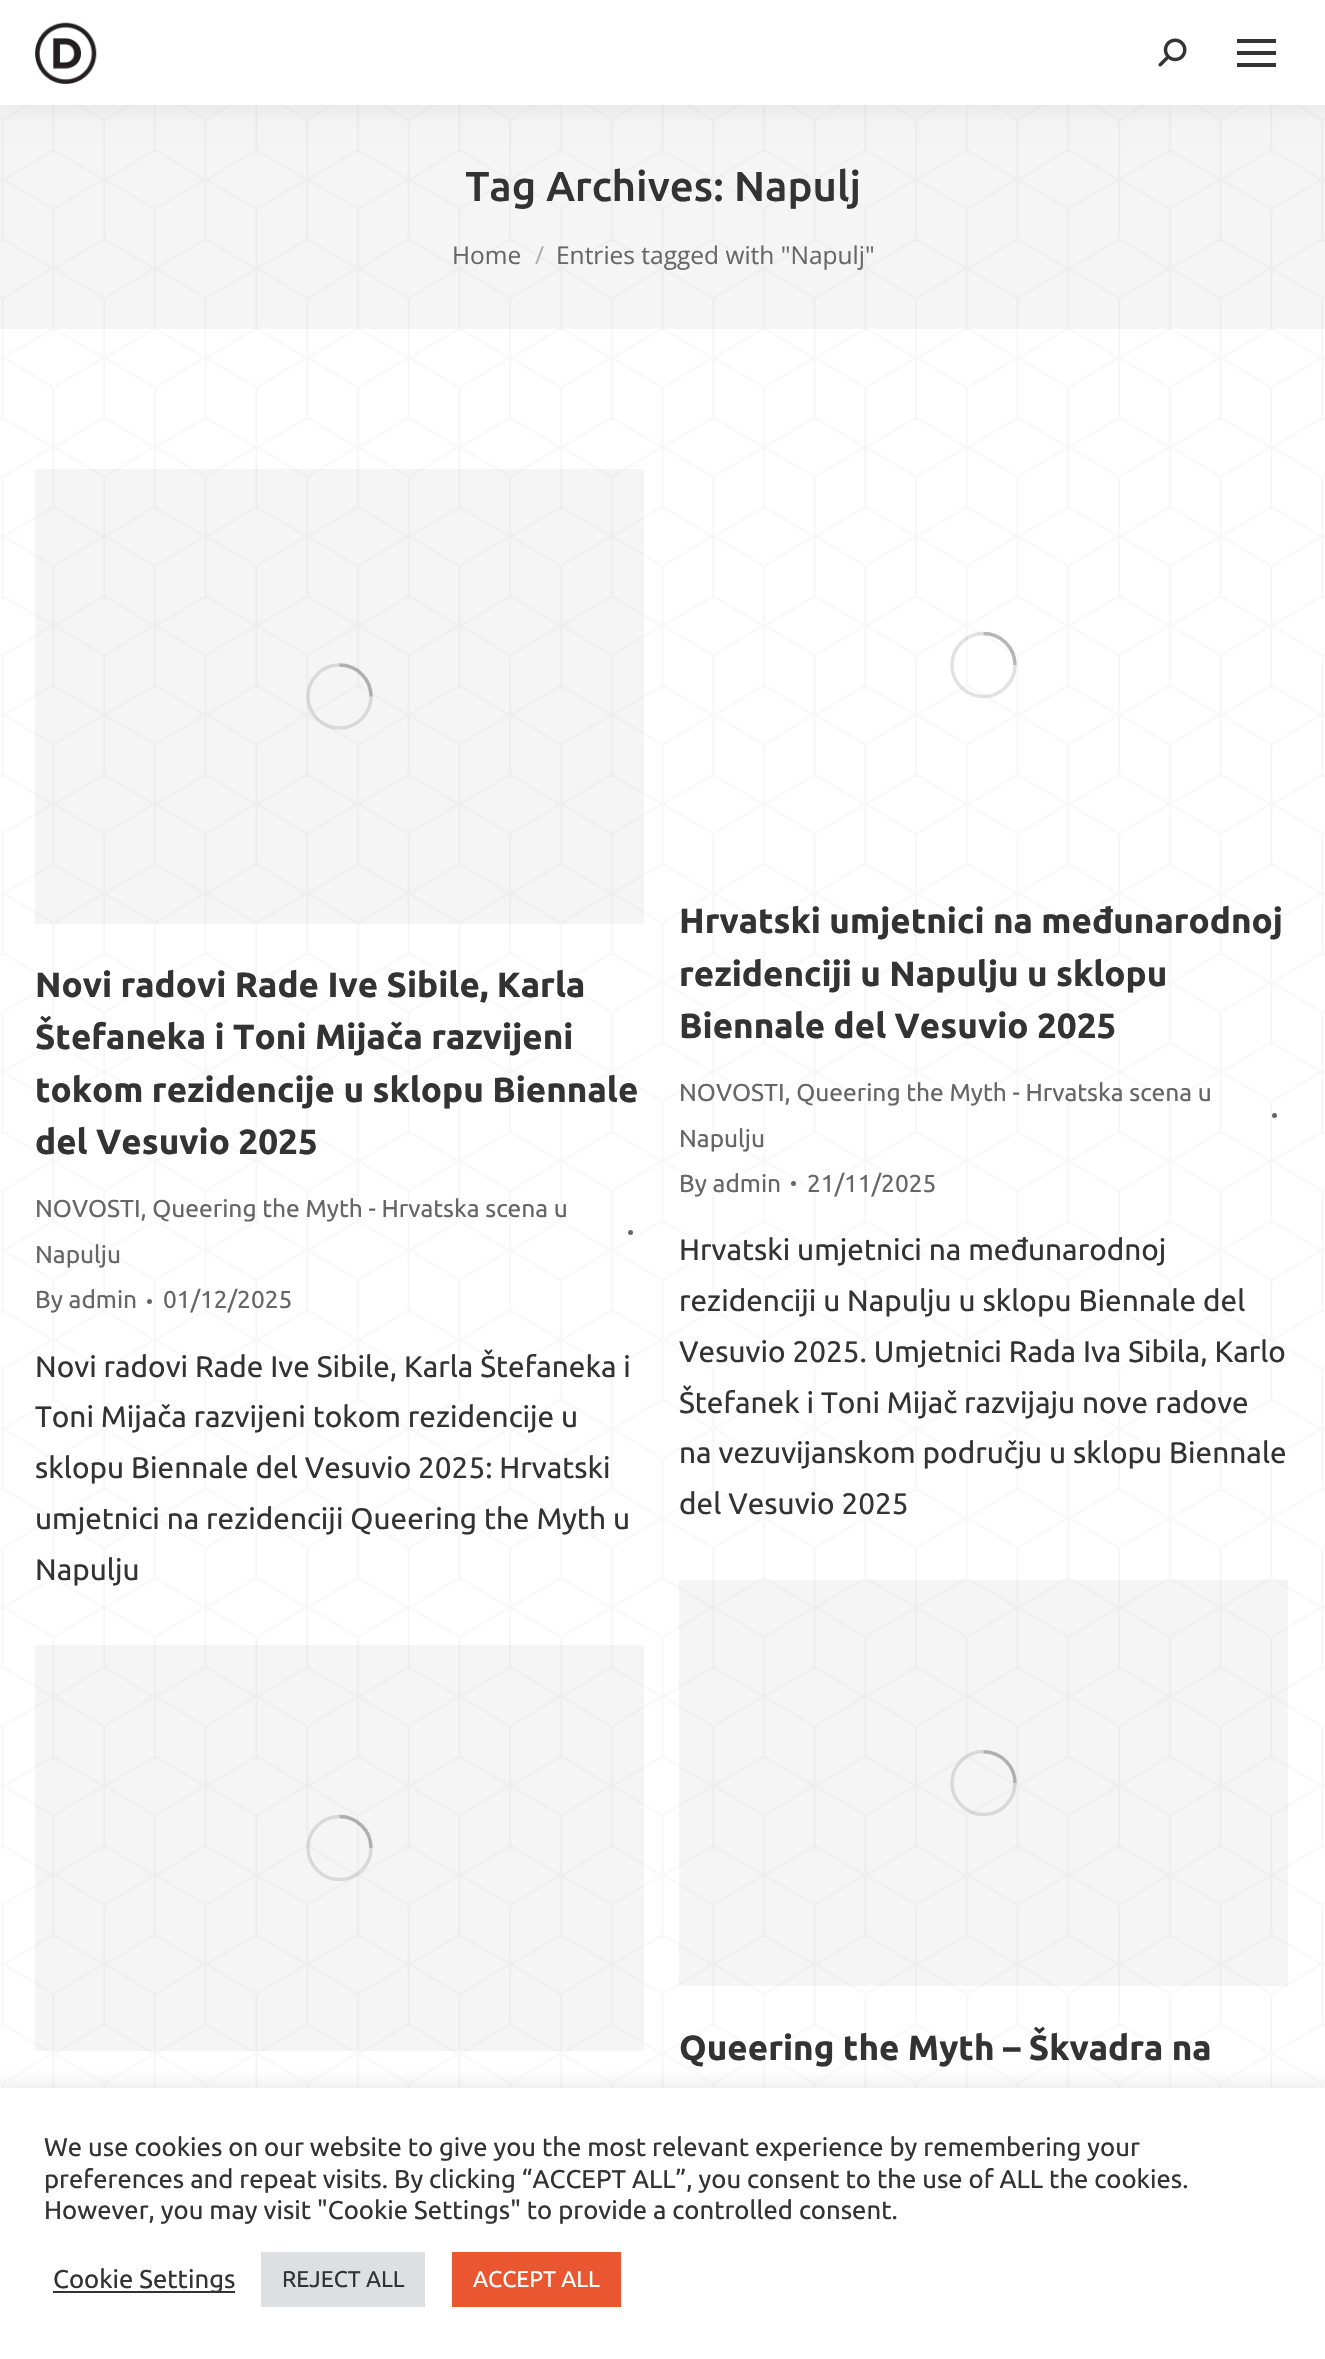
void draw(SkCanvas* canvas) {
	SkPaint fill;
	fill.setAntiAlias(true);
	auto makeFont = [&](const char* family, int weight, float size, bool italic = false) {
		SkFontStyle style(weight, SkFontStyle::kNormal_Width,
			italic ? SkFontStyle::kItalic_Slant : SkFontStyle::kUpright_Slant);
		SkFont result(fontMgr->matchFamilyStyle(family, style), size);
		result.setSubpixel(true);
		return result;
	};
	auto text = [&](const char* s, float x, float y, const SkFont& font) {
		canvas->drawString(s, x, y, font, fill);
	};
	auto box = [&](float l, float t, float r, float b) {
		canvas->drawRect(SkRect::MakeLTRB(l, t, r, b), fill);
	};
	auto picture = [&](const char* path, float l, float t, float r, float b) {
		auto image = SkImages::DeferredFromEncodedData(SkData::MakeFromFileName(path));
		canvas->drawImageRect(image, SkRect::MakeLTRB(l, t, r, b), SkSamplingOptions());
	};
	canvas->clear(0xFFFFFFFF);
	picture("image2.png", 0, 105, 1325, 2088);
	fill.setColor(0x0A000000);
	box(0, 105, 1325, 329);
	fill.setColor(0x12000000);
	fill.setMaskFilter(SkMaskFilter::MakeBlur(kNormal_SkBlurStyle, 13));
	canvas->drawRect(SkRect::MakeLTRB(-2, -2, 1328, 107), fill);
	fill.setMaskFilter(nullptr);
	fill.setColor(0xFFFFFFFF);
	box(0, 0, 1325, 105);
	picture("image0.png", 35, 22, 97, 84);
	picture("image1.png", 1158, 38, 1187, 67);
	fill.setColor(0xFF333333);
	box(1237, 39, 1276, 43);
	box(1237, 51, 1276, 55);
	box(1237, 63, 1276, 67);
	fill.setColor(0x0D333333);
	box(35, 469, 644, 924);
	fill.setStyle(SkPaint::kStroke_Style);
	fill.setStrokeWidth(3.5f);
	fill.setColor(0x24333333);
	canvas->drawCircle(339.5f, 696.5f, 31.5f, fill);
	fill.setColor(0x40333333);
	canvas->drawPath(SkPathBuilder().moveTo(371, 696.5f).cubicTo(371, 679, 357, 665, 339.5f, 665).detach(), fill);
	fill.setStyle(SkPaint::kFill_Style);
	fill.setColor(0xFF666666);
	canvas->drawCircle(630.5f, 1232.5f, 2.5f, fill);
	canvas->drawCircle(149.5f, 1301.5f, 2.5f, fill);
	fill.setStyle(SkPaint::kStroke_Style);
	fill.setColor(0x24333333);
	canvas->drawCircle(983.5f, 665, 31.5f, fill);
	fill.setColor(0x40333333);
	canvas->drawPath(SkPathBuilder().moveTo(1015, 665).cubicTo(1015, 647.5f, 1001, 633.5f, 983.5f, 633.5f).detach(), fill);
	fill.setStyle(SkPaint::kFill_Style);
	fill.setColor(0xFF666666);
	canvas->drawCircle(1274.5f, 1115.5f, 2.5f, fill);
	canvas->drawCircle(793.5f, 1183.5f, 2.5f, fill);
	fill.setColor(0x0D333333);
	box(35, 1645, 644, 2051);
	fill.setStyle(SkPaint::kStroke_Style);
	fill.setColor(0x24333333);
	canvas->drawCircle(339.5f, 1848, 31.5f, fill);
	fill.setColor(0x40333333);
	canvas->drawPath(SkPathBuilder().moveTo(371, 1848).cubicTo(371, 1830.5f, 357, 1816.5f, 339.5f, 1816.5f).detach(), fill);
	fill.setStyle(SkPaint::kFill_Style);
	fill.setColor(0x0D333333);
	box(679, 1580, 1288, 1986);
	fill.setStyle(SkPaint::kStroke_Style);
	fill.setColor(0x24333333);
	canvas->drawCircle(983.5f, 1783, 31.5f, fill);
	fill.setColor(0x40333333);
	canvas->drawPath(SkPathBuilder().moveTo(1015, 1783).cubicTo(1015, 1766, 1001, 1752, 983.5f, 1752).detach(), fill);
	fill.setStyle(SkPaint::kFill_Style);
	fill.setColor(0x4DACABAB);
	fill.setMaskFilter(SkMaskFilter::MakeBlur(kNormal_SkBlurStyle, 9));
	canvas->drawRect(SkRect::MakeLTRB(0, 2086, 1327, 2357), fill);
	fill.setMaskFilter(nullptr);
	fill.setColor(0xFFFFFFFF);
	box(0, 2088, 1325, 2359);
	fill.setColor(0xFF333333);
	box(53, 2291, 235, 2293);
	fill.setColor(0xFFDEDFE0);
	box(261, 2252, 425, 2307);
	fill.setColor(0xFFE9562F);
	box(452, 2252, 621, 2307);
	canvas->save();
	canvas->clipRect(SkRect::MakeLTRB(466, 158, 861, 217));
	auto font1 = makeFont("Ubuntu", 500, 42);
	fill.setColor(0xFF333333);
	text("Tag Archives:", 465, 201, font1);
	canvas->restore();
	text("Napulj", 734, 201, font1);
	auto font2 = makeFont("Open Sans", 400, 24.5f);
	fill.setColor(0xFF666666);
	text("Home", 452, 264, font2);
	fill.setColor(0xFFADADAD);
	text("/", 535, 264, font2);
	fill.setColor(0xFF666666);
	text("Entries tagged with \"Napulj\"", 556, 264, font2);
	auto font3 = makeFont("Ubuntu", 700, 35);
	fill.setColor(0xFF333333);
	text("Novi radovi Rade Ive Sibile, Karla", 35, 997, font3);
	text("Štefaneka i Toni Mijača razvijeni", 35, 1049, font3);
	text("tokom rezidencije u sklopu Biennale", 35, 1102, font3);
	text("del Vesuvio 2025", 35, 1154, font3);
	auto font4 = makeFont("Ubuntu", 400, 24.5f);
	fill.setColor(0xFF666666);
	text("NOVOSTI, Queering the Myth - Hrvatska scena u", 35, 1217, font4);
	text("Napulju", 35, 1263, font4);
	text("By admin", 35, 1308, font4);
	text("01/12/2025", 163, 1308, font4);
	auto font5 = makeFont("Ubuntu", 400, 29.75f);
	fill.setColor(0xFF333333);
	text("Novi radovi Rade Ive Sibile, Karla Štefaneka i", 35, 1377, font5);
	text("Toni Mijača razvijeni tokom rezidencije u", 35, 1427, font5);
	text("sklopu Biennale del Vesuvio 2025: Hrvatski", 35, 1478, font5);
	text("umjetnici na rezidenciji Queering the Myth u", 35, 1529, font5);
	text("Napulju", 35, 1580, font5);
	text("Hrvatski umjetnici na međunarodnoj", 679, 933, font3);
	text("rezidenciji u Napulju u sklopu", 679, 986, font3);
	text("Biennale del Vesuvio 2025", 679, 1038, font3);
	fill.setColor(0xFF666666);
	text("NOVOSTI, Queering the Myth - Hrvatska scena u", 679, 1101, font4);
	text("Napulju", 679, 1147, font4);
	text("By admin", 679, 1192, font4);
	text("21/11/2025", 807, 1192, font4);
	fill.setColor(0xFF333333);
	text("Hrvatski umjetnici na međunarodnoj", 679, 1260, font5);
	text("rezidenciji u Napulju u sklopu Biennale del", 679, 1311, font5);
	text("Vesuvio 2025. Umjetnici Rada Iva Sibila, Karlo", 679, 1362, font5);
	text("Štefanek i Toni Mijač razvijaju nove radove", 679, 1413, font5);
	text("na vezuvijanskom području u sklopu Biennale", 679, 1463, font5);
	text("del Vesuvio 2025", 679, 1514, font5);
	text("Queering the Myth – Škvadra na", 679, 2060, font3);
	auto font6 = makeFont("Ubuntu", 400, 25.65f);
	text("We use cookies on our website to give you the most relevant experience by remembering your", 44, 2156, font6);
	text("preferences and repeat visits. By clicking “ACCEPT ALL”, you consent to the use of ALL the cookies.", 44, 2188, font6);
	text("However, you may visit \"Cookie Settings\" to provide a controlled consent.", 44, 2219, font6);
	text("Cookie Settings", 53, 2288, font6);
	auto font7 = makeFont("Ubuntu", 400, 22.75f);
	text("REJECT ALL", 282, 2287, font7);
	fill.setColor(0xFFFFFFFF);
	text("ACCEPT ALL", 473, 2287, font7);
}
